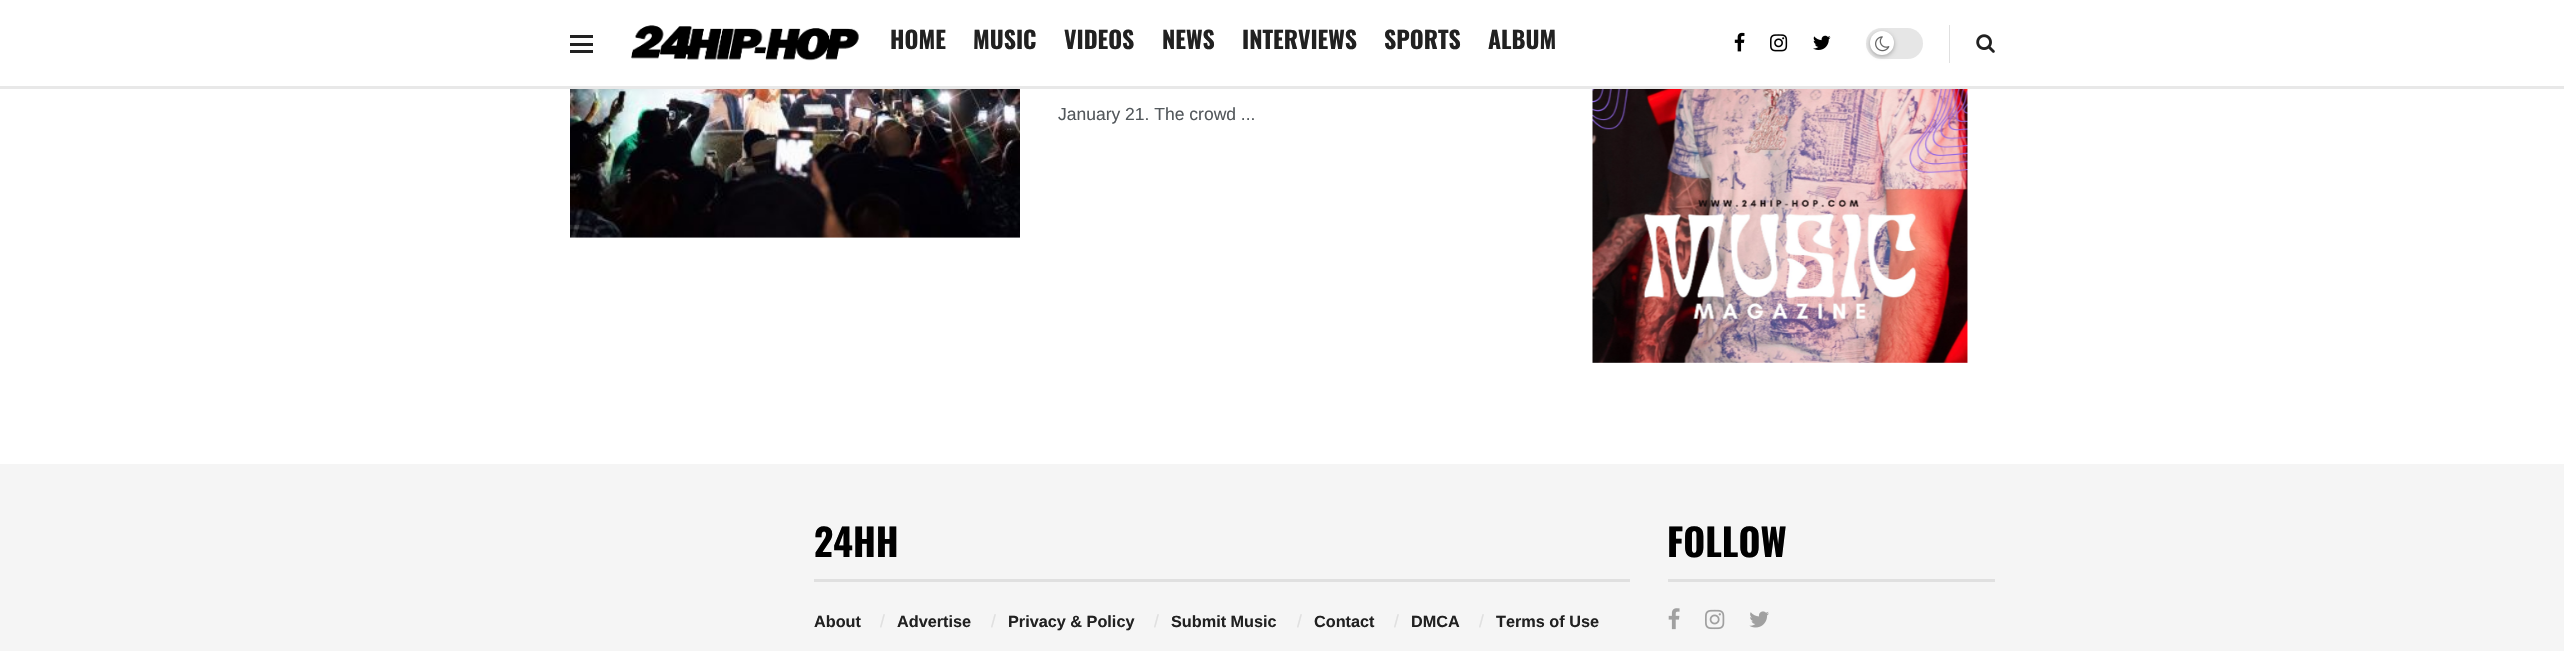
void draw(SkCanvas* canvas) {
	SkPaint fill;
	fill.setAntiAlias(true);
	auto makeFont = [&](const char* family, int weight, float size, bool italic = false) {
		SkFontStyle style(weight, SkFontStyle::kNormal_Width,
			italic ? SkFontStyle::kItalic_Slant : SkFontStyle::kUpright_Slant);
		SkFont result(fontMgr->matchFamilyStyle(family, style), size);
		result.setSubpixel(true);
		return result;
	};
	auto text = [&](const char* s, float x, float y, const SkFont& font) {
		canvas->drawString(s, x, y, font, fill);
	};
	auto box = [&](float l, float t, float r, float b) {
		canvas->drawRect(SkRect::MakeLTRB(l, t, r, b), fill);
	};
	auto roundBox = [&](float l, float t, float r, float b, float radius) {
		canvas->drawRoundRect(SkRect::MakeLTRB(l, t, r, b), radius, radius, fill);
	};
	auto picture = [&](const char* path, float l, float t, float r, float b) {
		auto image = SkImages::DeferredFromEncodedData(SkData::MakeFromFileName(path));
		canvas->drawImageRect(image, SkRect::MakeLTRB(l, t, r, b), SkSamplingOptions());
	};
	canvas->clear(0xFFFFFFFF);
	fill.setColor(0xFFE8E8E8);
	box(0, 86, 2564, 89);
	fill.setColor(0xFF212121);
	box(570, 35, 593, 38);
	box(570, 43, 593, 46);
	box(570, 50, 593, 53);
	picture("image0.png", 631, 25, 859, 61);
	picture("image1.png", 1734, 32, 1745, 52);
	picture("image2.png", 1770, 34, 1788, 52);
	picture("image3.png", 1813, 35, 1831, 50);
	fill.setColor(0xFFE6E6E6);
	roundBox(1866, 28, 1923, 59, 15.5f);
	fill.setColor(0x4D000000);
	fill.setMaskFilter(SkMaskFilter::MakeBlur(kNormal_SkBlurStyle, 2));
	canvas->drawRoundRect(SkRect::MakeLTRB(1870, 33, 1894, 56), 11.5f, 11.5f, fill);
	fill.setMaskFilter(nullptr);
	fill.setColor(0xFFFFFFFF);
	canvas->drawCircle(1882, 43, 12, fill);
	picture("image4.png", 1875, 36, 1890, 52);
	fill.setColor(0xFFE0E0E0);
	box(1949, 25, 1950, 63);
	picture("image5.png", 1976, 34, 1995, 53);
	fill.setColor(0xFFF7F7F7);
	box(570, 237, 1020, 238);
	picture("image6.png", 570, 89, 1020, 238);
	picture("image7.png", 1592, 89, 1968, 363);
	fill.setColor(0xFFF5F5F5);
	box(0, 464, 2564, 651);
	fill.setColor(0xFFE0E0E0);
	box(814, 579, 1630, 582);
	box(1668, 579, 1995, 582);
	picture("image8.png", 1668, 608, 1680, 630);
	picture("image9.png", 1705, 609, 1725, 630);
	picture("image10.png", 1749, 611, 1769, 628);
	auto font1 = makeFont("Oswald", 700, 23.75f);
	fill.setColor(0xFF212121);
	text("HOME", 890, 49, font1);
	text("MUSIC", 973, 49, font1);
	text("VIDEOS", 1064, 49, font1);
	text("NEWS", 1162, 49, font1);
	text("INTERVIEWS", 1242, 49, font1);
	text("SPORTS", 1384, 49, font1);
	text("ALBUM", 1488, 49, font1);
	auto font2 = makeFont("Liberation Sans", 400, 17.5f);
	fill.setColor(0xFF53585C);
	text("January 21. The crowd ...", 1058, 120, font2);
	auto font3 = makeFont("Oswald", 700, 37.5f);
	fill.setColor(0xFF000000);
	text("24HH", 814, 557, font3);
	auto font4 = makeFont("Liberation Sans", 700, 16.25f);
	fill.setColor(0xFF212121);
	text("About", 814, 627, font4);
	fill.setColor(0xFFE0E0E0);
	text("/", 880, 627, font2);
	fill.setColor(0xFF212121);
	text("Advertise", 897, 627, font4);
	fill.setColor(0xFFE0E0E0);
	text("/", 991, 627, font2);
	fill.setColor(0xFF212121);
	text("Privacy & Policy", 1008, 627, font4);
	fill.setColor(0xFFE0E0E0);
	text("/", 1154, 627, font2);
	fill.setColor(0xFF212121);
	text("Submit Music", 1171, 627, font4);
	fill.setColor(0xFFE0E0E0);
	text("/", 1297, 627, font2);
	fill.setColor(0xFF212121);
	text("Contact", 1314, 627, font4);
	fill.setColor(0xFFE0E0E0);
	text("/", 1394, 627, font2);
	fill.setColor(0xFF212121);
	text("DMCA", 1411, 627, font4);
	fill.setColor(0xFFE0E0E0);
	text("/", 1479, 627, font2);
	fill.setColor(0xFF212121);
	text("Terms of Use", 1496, 627, font4);
	fill.setColor(0xFF000000);
	text("FOLLOW", 1667, 557, font3);
}
